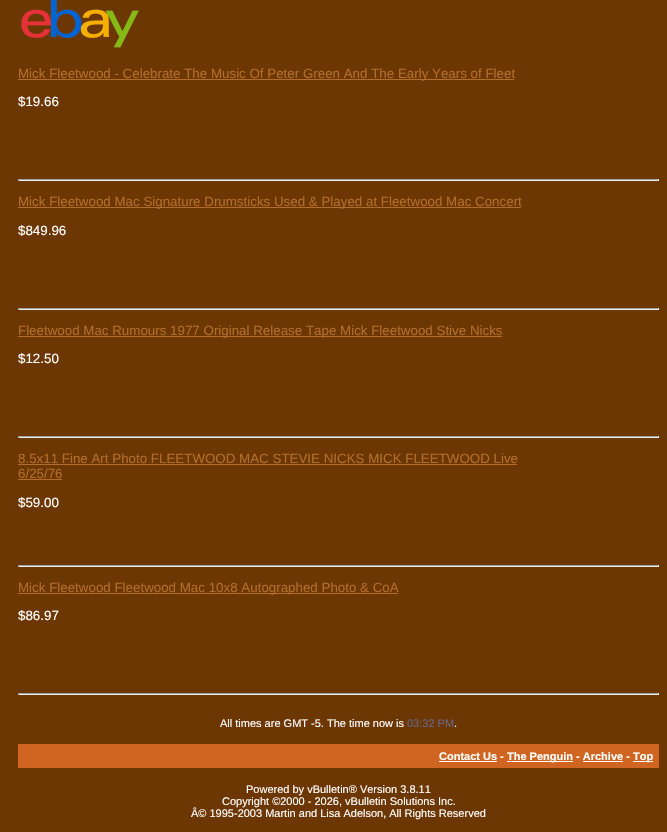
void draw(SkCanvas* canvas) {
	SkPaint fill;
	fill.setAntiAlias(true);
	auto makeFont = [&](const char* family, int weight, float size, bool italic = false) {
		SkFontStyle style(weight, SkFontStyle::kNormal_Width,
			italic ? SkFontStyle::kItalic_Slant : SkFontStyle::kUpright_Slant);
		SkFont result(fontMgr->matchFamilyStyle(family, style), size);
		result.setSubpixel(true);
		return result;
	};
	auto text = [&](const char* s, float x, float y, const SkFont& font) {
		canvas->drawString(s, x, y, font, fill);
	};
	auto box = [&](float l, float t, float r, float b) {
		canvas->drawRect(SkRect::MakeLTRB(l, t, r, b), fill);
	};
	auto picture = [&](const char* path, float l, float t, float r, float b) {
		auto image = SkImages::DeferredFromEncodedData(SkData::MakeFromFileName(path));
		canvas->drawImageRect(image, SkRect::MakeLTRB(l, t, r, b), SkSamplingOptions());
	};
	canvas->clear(0xFF6D3703);
	picture("image0.png", 21, 0, 139, 48);
	fill.setColor(0xFFB26D2A);
	box(18, 79, 514, 80);
	fill.setColor(0xFF9F9F9F);
	box(18, 179, 659, 180);
	fill.setColor(0xFFEEEEEE);
	box(658, 179, 659, 181);
	box(18, 180, 659, 181);
	fill.setColor(0xFF9F9F9F);
	box(18, 179, 19, 181);
	fill.setColor(0xFFB26D2A);
	box(18, 207, 521, 208);
	fill.setColor(0xFF9F9F9F);
	box(18, 308, 659, 309);
	fill.setColor(0xFFEEEEEE);
	box(658, 308, 659, 310);
	box(18, 309, 659, 310);
	fill.setColor(0xFF9F9F9F);
	box(18, 308, 19, 310);
	fill.setColor(0xFFB26D2A);
	box(18, 336, 502, 337);
	fill.setColor(0xFF9F9F9F);
	box(18, 436, 659, 437);
	fill.setColor(0xFFEEEEEE);
	box(658, 436, 659, 438);
	box(18, 437, 659, 438);
	fill.setColor(0xFF9F9F9F);
	box(18, 436, 19, 438);
	fill.setColor(0xFFB26D2A);
	box(18, 464, 517, 465);
	box(18, 479, 62, 480);
	fill.setColor(0xFF9F9F9F);
	box(18, 565, 659, 566);
	fill.setColor(0xFFEEEEEE);
	box(658, 565, 659, 567);
	box(18, 566, 659, 567);
	fill.setColor(0xFF9F9F9F);
	box(18, 565, 19, 567);
	fill.setColor(0xFFB26D2A);
	box(18, 593, 398, 594);
	fill.setColor(0xFF9F9F9F);
	box(18, 693, 659, 694);
	fill.setColor(0xFFEEEEEE);
	box(658, 693, 659, 695);
	box(18, 694, 659, 695);
	fill.setColor(0xFF9F9F9F);
	box(18, 693, 19, 695);
	fill.setColor(0xFFD06522);
	box(18, 744, 659, 768);
	fill.setColor(0xFFFFFFFF);
	box(439, 761, 497, 762);
	box(507, 761, 573, 762);
	box(583, 761, 623, 762);
	box(633, 761, 653, 762);
	auto font1 = makeFont("Liberation Sans", 400, 13.35f);
	fill.setColor(0xFFB26D2A);
	text("Mick Fleetwood - Celebrate The Music Of Peter Green And The Early Years of Fleet", 18, 78, font1);
	fill.setColor(0xFFFFFFFF);
	text("$19.66", 18, 106, font1);
	fill.setColor(0xFFB26D2A);
	text("Mick Fleetwood Mac Signature Drumsticks Used & Played at Fleetwood Mac Concert", 18, 206, font1);
	fill.setColor(0xFFFFFFFF);
	text("$849.96", 18, 235, font1);
	fill.setColor(0xFFB26D2A);
	text("Fleetwood Mac Rumours 1977 Original Release Tape Mick Fleetwood Stive Nicks", 18, 335, font1);
	fill.setColor(0xFFFFFFFF);
	text("$12.50", 18, 363, font1);
	fill.setColor(0xFFB26D2A);
	text("8.5x11 Fine Art Photo FLEETWOOD MAC STEVIE NICKS MICK FLEETWOOD Live", 18, 463, font1);
	text("6/25/76", 18, 478, font1);
	fill.setColor(0xFFFFFFFF);
	text("$59.00", 18, 507, font1);
	fill.setColor(0xFFB26D2A);
	text("Mick Fleetwood Fleetwood Mac 10x8 Autographed Photo & CoA", 18, 592, font1);
	fill.setColor(0xFFFFFFFF);
	text("$86.97", 18, 620, font1);
	auto font2 = makeFont("Liberation Sans", 400, 11);
	text("All times are GMT -5. The time now is", 220, 727, font2);
	fill.setColor(0xFF666686);
	text("03:32 PM", 407, 727, font2);
	fill.setColor(0xFFFFFFFF);
	text(".", 454, 727, font2);
	auto font3 = makeFont("Liberation Sans", 700, 11);
	text("Contact Us -", 439, 760, font3);
	text("The Penguin - Archive -", 507, 760, font3);
	text("Top", 633, 760, font3);
	text("Powered by vBulletin® Version 3.8.11", 246, 793, font2);
	text("Copyright ©2000 - 2026, vBulletin Solutions Inc.", 222, 805, font2);
	text("Â© 1995-2003 Martin and Lisa Adelson, All Rights Reserved", 191, 817, font2);
}
